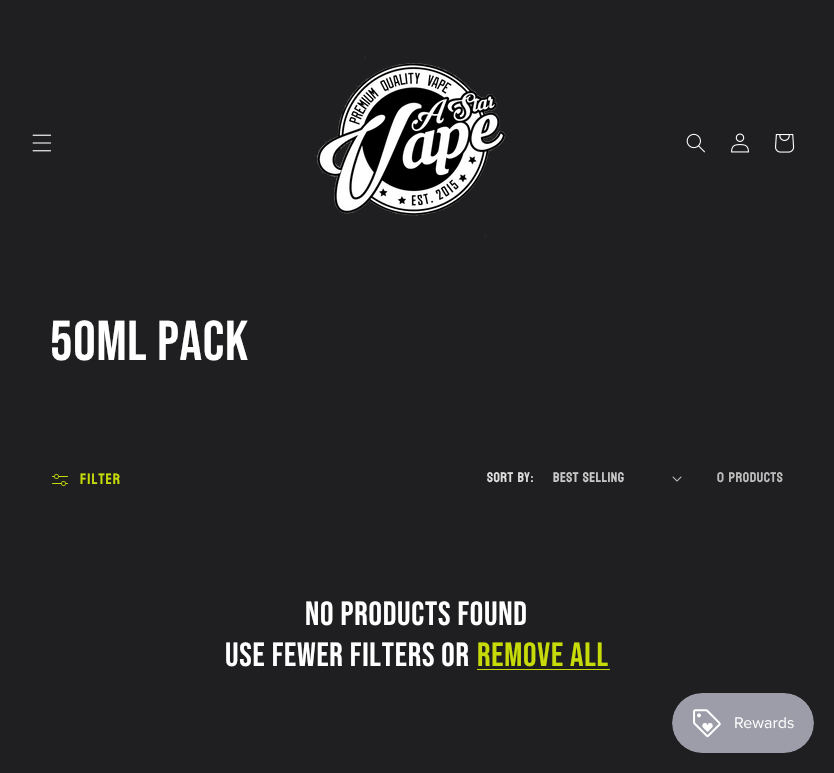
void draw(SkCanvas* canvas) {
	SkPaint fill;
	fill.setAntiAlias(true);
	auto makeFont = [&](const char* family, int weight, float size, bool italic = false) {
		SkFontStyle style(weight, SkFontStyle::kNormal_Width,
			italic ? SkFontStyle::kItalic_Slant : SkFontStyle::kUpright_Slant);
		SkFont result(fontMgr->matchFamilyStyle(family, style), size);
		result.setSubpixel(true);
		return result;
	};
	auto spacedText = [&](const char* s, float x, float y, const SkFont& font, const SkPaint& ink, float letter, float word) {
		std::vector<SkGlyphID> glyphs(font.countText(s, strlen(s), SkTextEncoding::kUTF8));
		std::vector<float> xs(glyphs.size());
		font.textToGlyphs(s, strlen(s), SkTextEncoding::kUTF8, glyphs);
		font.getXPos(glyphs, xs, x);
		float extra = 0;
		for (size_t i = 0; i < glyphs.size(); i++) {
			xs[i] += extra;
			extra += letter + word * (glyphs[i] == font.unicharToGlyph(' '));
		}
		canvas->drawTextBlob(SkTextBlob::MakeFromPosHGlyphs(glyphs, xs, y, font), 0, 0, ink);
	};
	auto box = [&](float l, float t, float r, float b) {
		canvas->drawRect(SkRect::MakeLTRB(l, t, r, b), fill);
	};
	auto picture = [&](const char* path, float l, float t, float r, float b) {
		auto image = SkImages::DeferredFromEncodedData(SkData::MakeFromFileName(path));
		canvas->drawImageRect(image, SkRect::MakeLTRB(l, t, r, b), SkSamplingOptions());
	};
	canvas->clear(0xFF1F1F21);
	picture("image0.png", 32, 134, 52, 152);
	picture("image1.png", 315, 56, 506, 238);
	picture("image2.png", 686, 133, 705, 153);
	picture("image3.png", 731, 133, 749, 153);
	picture("image4.png", 775, 134, 795, 153);
	picture("image5.png", 52, 474, 68, 486);
	picture("image6.png", 672, 476, 682, 482);
	fill.setColor(0xFFC6DB07);
	box(477, 669, 610, 670);
	picture("image7.png", 672, 693, 814, 753);
	auto font1 = makeFont("Bebas Neue", 400, 56);
	fill.setColor(0xFFFFFFFF);
	spacedText("50ml pack", 50, 360, font1, fill, 0.8f, 0);
	auto font2 = makeFont("Bayon", 400, 15);
	fill.setColor(0xFFC6DB07);
	spacedText("Filter", 80, 484, font2, fill, 1, 0);
	auto font3 = makeFont("Bayon", 400, 14);
	fill.setColor(0xFFDDDDDE);
	spacedText("Sort by:", 487, 482, font3, fill, 0.4f, 0);
	fill.setColor(0xFFC7C7C8);
	spacedText("Best selling", 553, 482, font3, fill, 0.4f, 0);
	fill.setColor(0xFFBCBCBC);
	spacedText("0 products", 717, 482, font3, fill, 0.5f, 0);
	auto font4 = makeFont("Bebas Neue", 400, 33.5f);
	fill.setColor(0xFFFFFFFF);
	spacedText("No products found", 305, 625, font4, fill, 0.8f, 0);
	spacedText("Use fewer filters or", 225, 666, font4, fill, 0.8f, 0);
	fill.setColor(0xFFC6DB07);
	spacedText("remove all", 477, 666, font4, fill, 0.8f, 0);
}
